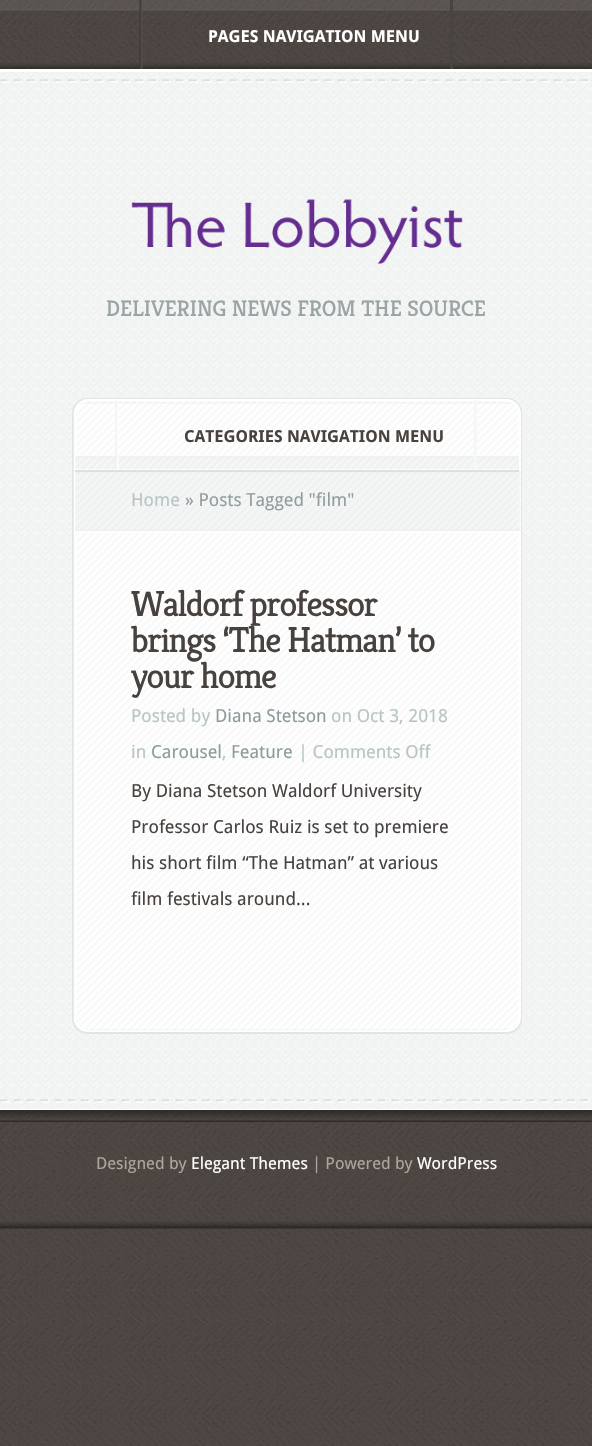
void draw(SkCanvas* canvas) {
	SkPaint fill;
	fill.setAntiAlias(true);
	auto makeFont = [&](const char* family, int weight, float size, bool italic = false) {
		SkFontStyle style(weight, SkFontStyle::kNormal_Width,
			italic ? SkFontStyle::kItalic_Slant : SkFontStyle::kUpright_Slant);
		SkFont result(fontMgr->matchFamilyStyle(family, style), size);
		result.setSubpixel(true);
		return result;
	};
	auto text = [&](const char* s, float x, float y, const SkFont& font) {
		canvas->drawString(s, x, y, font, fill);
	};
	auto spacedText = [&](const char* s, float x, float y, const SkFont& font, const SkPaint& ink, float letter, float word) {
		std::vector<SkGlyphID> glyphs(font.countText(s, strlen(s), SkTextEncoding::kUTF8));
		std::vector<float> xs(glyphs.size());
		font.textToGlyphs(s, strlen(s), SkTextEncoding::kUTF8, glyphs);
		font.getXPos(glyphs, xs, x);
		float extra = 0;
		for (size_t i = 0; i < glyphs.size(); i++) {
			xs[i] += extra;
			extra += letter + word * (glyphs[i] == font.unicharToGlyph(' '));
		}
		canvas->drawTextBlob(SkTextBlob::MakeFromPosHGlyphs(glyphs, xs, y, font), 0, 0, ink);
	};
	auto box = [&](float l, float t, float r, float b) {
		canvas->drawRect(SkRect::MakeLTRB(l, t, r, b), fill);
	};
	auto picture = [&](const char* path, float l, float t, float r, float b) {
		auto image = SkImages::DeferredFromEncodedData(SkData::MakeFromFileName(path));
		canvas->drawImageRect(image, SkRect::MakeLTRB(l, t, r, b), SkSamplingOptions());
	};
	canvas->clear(0xFFFFFFFF);
	picture("image0.png", 0, 0, 592, 1446);
	fill.setColor(0xFFFFFFFF);
	box(0, 69, 592, 72);
	picture("image1.png", 0, 0, 592, 11);
	picture("image3.png", 0, 63, 592, 69);
	picture("image2.png", 139, 0, 143, 69);
	fill.setColor(0xFF484441);
	box(450, 0, 453, 69);
	fill.setColor(0xFFFAFCFC);
	box(0, 72, 592, 1109);
	picture("image4.png", 0, 72, 592, 1109);
	fill.setColor(0xFFFFFFFF);
	box(0, 1109, 592, 1110);
	picture("image5.png", 0, 79, 590, 83);
	picture("image6.png", 131, 199, 463, 265);
	fill.setStyle(SkPaint::kStroke_Style);
	fill.setStrokeWidth(2);
	fill.setColor(0xFFE2E5E5);
	canvas->drawRoundRect(SkRect::MakeLTRB(73, 399, 521, 1033), 14, 14, fill);
	picture("image7.png", 73, 399, 520, 1032);
	fill.setColor(0xFFFFFFFF);
	canvas->drawRoundRect(SkRect::MakeLTRB(75, 400, 520, 1031), 14, 14, fill);
	picture("image8.png", 82, 402, 512, 404);
	picture("image9.png", 86, 1029, 508, 1030);
	picture("image10.png", 75, 455, 519, 470);
	picture("image11.png", 115, 400, 119, 470);
	fill.setStyle(SkPaint::kFill_Style);
	fill.setColor(0xFFF6F7F7);
	box(474, 400, 477, 470);
	picture("image12.png", 75, 469, 521, 533);
	fill.setColor(0xFFDEE0E0);
	box(75, 470, 519, 472);
	picture("image5.png", 0, 1099, 590, 1103);
	picture("image13.png", 0, 1110, 592, 1228);
	picture("image14.png", 0, 1110, 592, 1122);
	picture("image15.png", 0, 1221, 592, 1229);
	auto font1 = makeFont("Droid Sans", 700, 16.5f);
	fill.setColor(0xFFFFFFFF);
	text("PAGES NAVIGATION MENU", 208, 42, font1);
	auto font2 = makeFont("Kreon", 400, 22.5f);
	fill.setColor(0xFF9AA4A4);
	text("DELIVERING NEWS FROM THE SOURCE", 106, 316, font2);
	fill.setColor(0xFF48423F);
	text("CATEGORIES NAVIGATION MENU", 184, 442, font1);
	auto font3 = makeFont("Droid Sans", 400, 18);
	fill.setColor(0xFFB9C5C5);
	text("Home", 131, 506, font3);
	fill.setColor(0xFF929E9E);
	text("» Posts Tagged \"film\"", 185, 506, font3);
	auto font4 = makeFont("Kreon", 400, 36);
	fill.setColor(0xFF48423F);
	spacedText("Waldorf professor", 131, 616, font4, fill, -1.5f, 0);
	spacedText("brings ‘The Hatman’ to", 131, 652, font4, fill, -1.5f, 0);
	spacedText("your home", 131, 688, font4, fill, -1.5f, 0);
	fill.setColor(0xFFB9C5C5);
	text("Posted by", 131, 722, font3);
	fill.setColor(0xFF8C9C9C);
	text("Diana Stetson", 215, 722, font3);
	fill.setColor(0xFFB9C5C5);
	text("on Oct 3, 2018", 331, 722, font3);
	text("in", 131, 758, font3);
	fill.setColor(0xFF8C9C9C);
	text("Carousel", 151, 758, font3);
	fill.setColor(0xFFB9C5C5);
	text(",", 222, 758, font3);
	fill.setColor(0xFF8C9C9C);
	text("Feature", 231, 758, font3);
	fill.setColor(0xFFB9C5C5);
	text("| Comments Off", 298, 758, font3);
	fill.setColor(0xFF48423F);
	text("By Diana Stetson Waldorf University", 131, 797, font3);
	text("Professor Carlos Ruiz is set to premiere", 131, 833, font3);
	text("his short film “The Hatman” at various", 131, 869, font3);
	text("film festivals around...", 131, 905, font3);
	auto font5 = makeFont("Droid Sans", 400, 16.5f);
	fill.setColor(0xFFAFA59F);
	text("Designed by", 96, 1169, font5);
	fill.setColor(0xFFFFFFFF);
	text("Elegant Themes", 191, 1169, font5);
	fill.setColor(0xFFAFA59F);
	text("| Powered by", 312, 1169, font5);
	fill.setColor(0xFFFFFFFF);
	text("WordPress", 417, 1169, font5);
}
